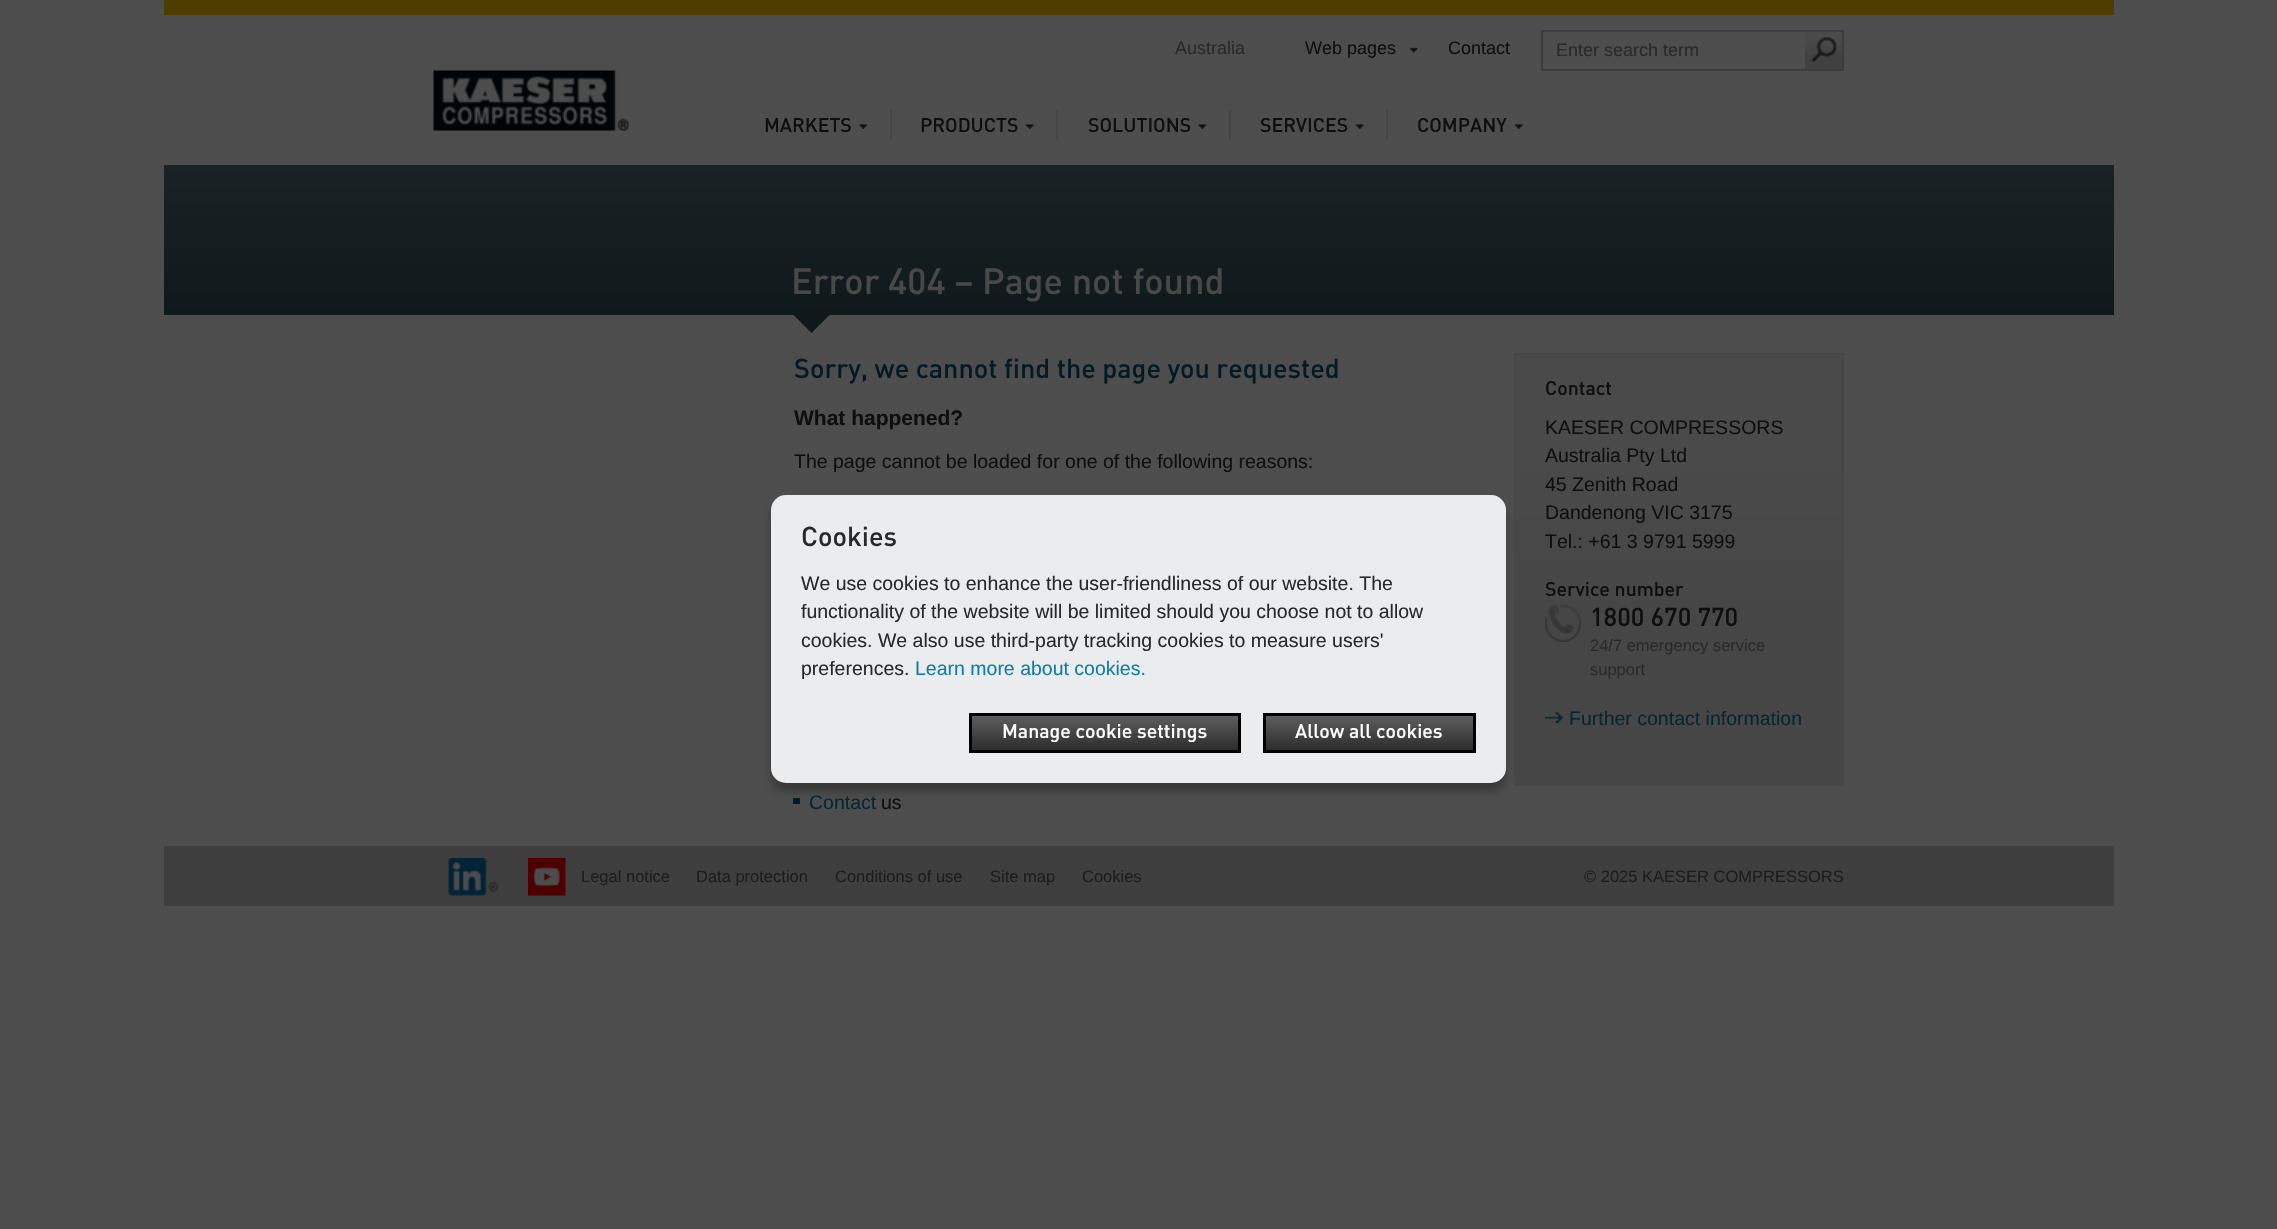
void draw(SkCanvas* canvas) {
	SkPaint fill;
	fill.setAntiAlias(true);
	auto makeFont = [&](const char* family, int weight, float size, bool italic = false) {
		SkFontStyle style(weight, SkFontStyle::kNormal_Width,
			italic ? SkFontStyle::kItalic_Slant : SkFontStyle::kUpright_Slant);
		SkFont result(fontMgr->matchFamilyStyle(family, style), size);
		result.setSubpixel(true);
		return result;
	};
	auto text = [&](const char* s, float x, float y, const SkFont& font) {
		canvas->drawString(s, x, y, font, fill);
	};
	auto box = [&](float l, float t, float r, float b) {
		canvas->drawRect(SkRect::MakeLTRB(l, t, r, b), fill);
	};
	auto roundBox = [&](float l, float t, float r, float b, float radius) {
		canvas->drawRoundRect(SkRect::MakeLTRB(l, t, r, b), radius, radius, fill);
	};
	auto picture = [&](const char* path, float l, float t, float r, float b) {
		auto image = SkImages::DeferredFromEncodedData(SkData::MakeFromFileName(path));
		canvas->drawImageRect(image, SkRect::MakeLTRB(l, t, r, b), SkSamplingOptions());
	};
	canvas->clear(0xFF4D4D4D);
	fill.setColor(0xFF4D3E00);
	box(164, 0, 2114, 15);
	picture("image0.png", 1409, 47, 1418, 53);
	fill.setColor(0xFF3C3C3C);
	box(1541, 30, 1844, 32);
	box(1541, 69, 1805, 71);
	box(1541, 30, 1543, 71);
	{
		const SkColor colors[] = {0xFF4A4A4A, 0xFF414141};
		const float stops[] = {0.23f, 0.62f};
		const SkPoint ends[] = {{1823, 32}, {1823, 69}};
		fill.setShader(SkGradientShader::MakeLinear(ends, colors, stops, 2, SkTileMode::kClamp));
		fill.setAlpha(255);
	}
	box(1805, 32, 1842, 69);
	fill.setShader(nullptr);
	fill.setColor(0xFF3C3C3C);
	box(1842, 30, 1844, 71);
	box(1805, 69, 1844, 71);
	picture("image1.png", 1811, 37, 1837, 62);
	picture("image2.png", 433, 70, 629, 131);
	fill.setColor(0xFF454545);
	box(890, 110, 892, 140);
	picture("image3.png", 859, 124, 868, 129);
	box(1056, 110, 1058, 140);
	picture("image4.png", 1026, 124, 1034, 129);
	box(1229, 110, 1231, 140);
	picture("image5.png", 1198, 124, 1207, 129);
	box(1386, 110, 1388, 140);
	picture("image4.png", 1356, 124, 1364, 129);
	picture("image4.png", 1515, 124, 1523, 129);
	{
		const SkColor colors[] = {0xFF192326, 0xFF0F181B};
		const float stops[] = {0, 1};
		const SkPoint ends[] = {{1139, 165}, {1139, 315}};
		fill.setShader(SkGradientShader::MakeLinear(ends, colors, stops, 2, SkTileMode::kClamp));
		fill.setAlpha(255);
	}
	box(164, 165, 2114, 315);
	fill.setShader(nullptr);
	fill.setColor(0xFF0F181B);
	canvas->drawPath(SkPathBuilder().moveTo(793.5f, 315).lineTo(829.5f, 315).lineTo(811.5f, 333).close().detach(), fill);
	fill.setColor(0xFF031A24);
	box(793, 798, 800, 804);
	{
		const SkColor colors[] = {0xFF4A4A4A, 0xFF464646};
		const float stops[] = {0.23f, 0.62f};
		const SkPoint ends[] = {{1679, 354}, {1679, 785}};
		fill.setShader(SkGradientShader::MakeLinear(ends, colors, stops, 2, SkTileMode::kClamp));
		fill.setAlpha(255);
	}
	box(1516, 355, 1842, 784);
	fill.setStyle(SkPaint::kStroke_Style);
	fill.setStrokeWidth(2);
	fill.setShader(nullptr);
	fill.setColor(0xFF464646);
	canvas->drawRect(SkRect::MakeLTRB(1515, 354, 1843, 785), fill);
	picture("image6.png", 1545, 604, 1582, 642);
	picture("image7.png", 1545, 712, 1563, 723);
	fill.setStyle(SkPaint::kFill_Style);
	fill.setColor(0xFF3E3E3E);
	box(164, 846, 2114, 906);
	picture("image8.png", 448, 858, 498, 896);
	picture("image9.png", 528, 858, 566, 896);
	fill.setColor(0x40000000);
	fill.setMaskFilter(SkMaskFilter::MakeBlur(kNormal_SkBlurStyle, 4.5f));
	canvas->drawRoundRect(SkRect::MakeLTRB(771, 504, 1506, 792), 15, 15, fill);
	fill.setMaskFilter(nullptr);
	fill.setColor(0xFFEBECEE);
	roundBox(771, 495, 1506, 783, 15);
	{
		const SkColor colors[] = {0xFF5D5D5D, 0xFF2D2D2D};
		const float stops[] = {0, 1};
		const SkPoint ends[] = {{1105, 716}, {1105, 750}};
		fill.setShader(SkGradientShader::MakeLinear(ends, colors, stops, 2, SkTileMode::kClamp));
		fill.setAlpha(255);
	}
	box(972, 716, 1238, 750);
	fill.setStyle(SkPaint::kStroke_Style);
	fill.setStrokeWidth(3);
	fill.setShader(nullptr);
	fill.setColor(0xFF000000);
	canvas->drawRect(SkRect::MakeLTRB(970.5f, 714.5f, 1239.5f, 751.5f), fill);
	fill.setStyle(SkPaint::kFill_Style);
	{
		const SkColor colors[] = {0xFF5D5D5D, 0xFF2D2D2D};
		const float stops[] = {0, 1};
		const SkPoint ends[] = {{1370, 716}, {1370, 750}};
		fill.setShader(SkGradientShader::MakeLinear(ends, colors, stops, 2, SkTileMode::kClamp));
		fill.setAlpha(255);
	}
	box(1266, 716, 1473, 750);
	fill.setStyle(SkPaint::kStroke_Style);
	fill.setShader(nullptr);
	fill.setColor(0xFF000000);
	canvas->drawRect(SkRect::MakeLTRB(1264.5f, 714.5f, 1474.5f, 751.5f), fill);
	auto font1 = makeFont("Liberation Sans", 400, 18);
	fill.setStyle(SkPaint::kFill_Style);
	fill.setColor(0xFF292929);
	text("Australia", 1175, 54, font1);
	fill.setColor(0xFF0E0E0E);
	text("Web pages", 1305, 54, font1);
	text("Contact", 1448, 54, font1);
	fill.setColor(0xFF292929);
	text("Enter search term", 1556, 56, font1);
	auto font2 = makeFont("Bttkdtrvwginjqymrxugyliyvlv", 500, 19.5f);
	fill.setColor(0xFF0E0E0E);
	text("MARKETS", 764, 132, font2);
	text("PRODUCTS", 920, 132, font2);
	text("SOLUTIONS", 1088, 132, font2);
	text("SERVICES", 1260, 132, font2);
	text("COMPANY", 1417, 132, font2);
	auto font3 = makeFont("Bttkdtrvwginjqymrxugyliyvlv", 500, 36);
	fill.setColor(0xFF484848);
	text("Error 404 – Page not found", 791, 294, font3);
	auto font4 = makeFont("Bttkdtrvwginjqymrxugyliyvlv", 500, 27);
	fill.setColor(0xFF031A24);
	text("Sorry, we cannot find the page you requested", 794, 378, font4);
	auto font5 = makeFont("Liberation Sans", 700, 21);
	fill.setColor(0xFF0E0E0E);
	text("What happened?", 794, 425, font5);
	auto font6 = makeFont("Liberation Sans", 400, 19.5f);
	text("The page cannot be loaded for one of the following reasons:", 794, 468, font6);
	fill.setColor(0xFF052533);
	text("Contact", 809, 809, font6);
	fill.setColor(0xFF0E0E0E);
	text("us", 881, 809, font6);
	text("Contact", 1545, 395, font2);
	text("KAESER COMPRESSORS", 1545, 434, font6);
	text("Australia Pty Ltd", 1545, 462, font6);
	text("45 Zenith Road", 1545, 491, font6);
	text("Dandenong VIC 3175", 1545, 519, font6);
	text("Tel.: +61 3 9791 5999", 1545, 548, font6);
	text("Service number", 1545, 596, font2);
	auto font7 = makeFont("Bttkdtrvwginjqymrxugyliyvlv", 500, 25.5f);
	text("1800 670 770", 1590, 626, font7);
	auto font8 = makeFont("Liberation Sans", 400, 16.5f);
	fill.setColor(0xFF292929);
	text("24/7 emergency service", 1590, 651, font8);
	text("support", 1590, 675, font8);
	fill.setColor(0xFF052533);
	text("Further contact information", 1569, 725, font6);
	fill.setColor(0xFF1C1C1C);
	text("Legal notice", 581, 882, font8);
	text("Data protection", 696, 882, font8);
	text("Conditions of use", 835, 882, font8);
	text("Site map", 990, 882, font8);
	text("Cookies", 1082, 882, font8);
	text("© 2025 KAESER COMPRESSORS", 1584, 882, font8);
	fill.setColor(0xFF292929);
	text("Cookies", 801, 546, font4);
	text("We use cookies to enhance the user-friendliness of our website. The", 801, 590, font6);
	text("functionality of the website will be limited should you choose not to allow", 801, 618, font6);
	text("cookies. We also use third-party tracking cookies to measure users'", 801, 647, font6);
	text("preferences.", 801, 675, font6);
	fill.setColor(0xFF107CAA);
	text("Learn more about cookies.", 915, 675, font6);
	fill.setColor(0xFFFFFFFF);
	text("Manage cookie settings", 1002, 738, font2);
	text("Allow all cookies", 1295, 738, font2);
}
